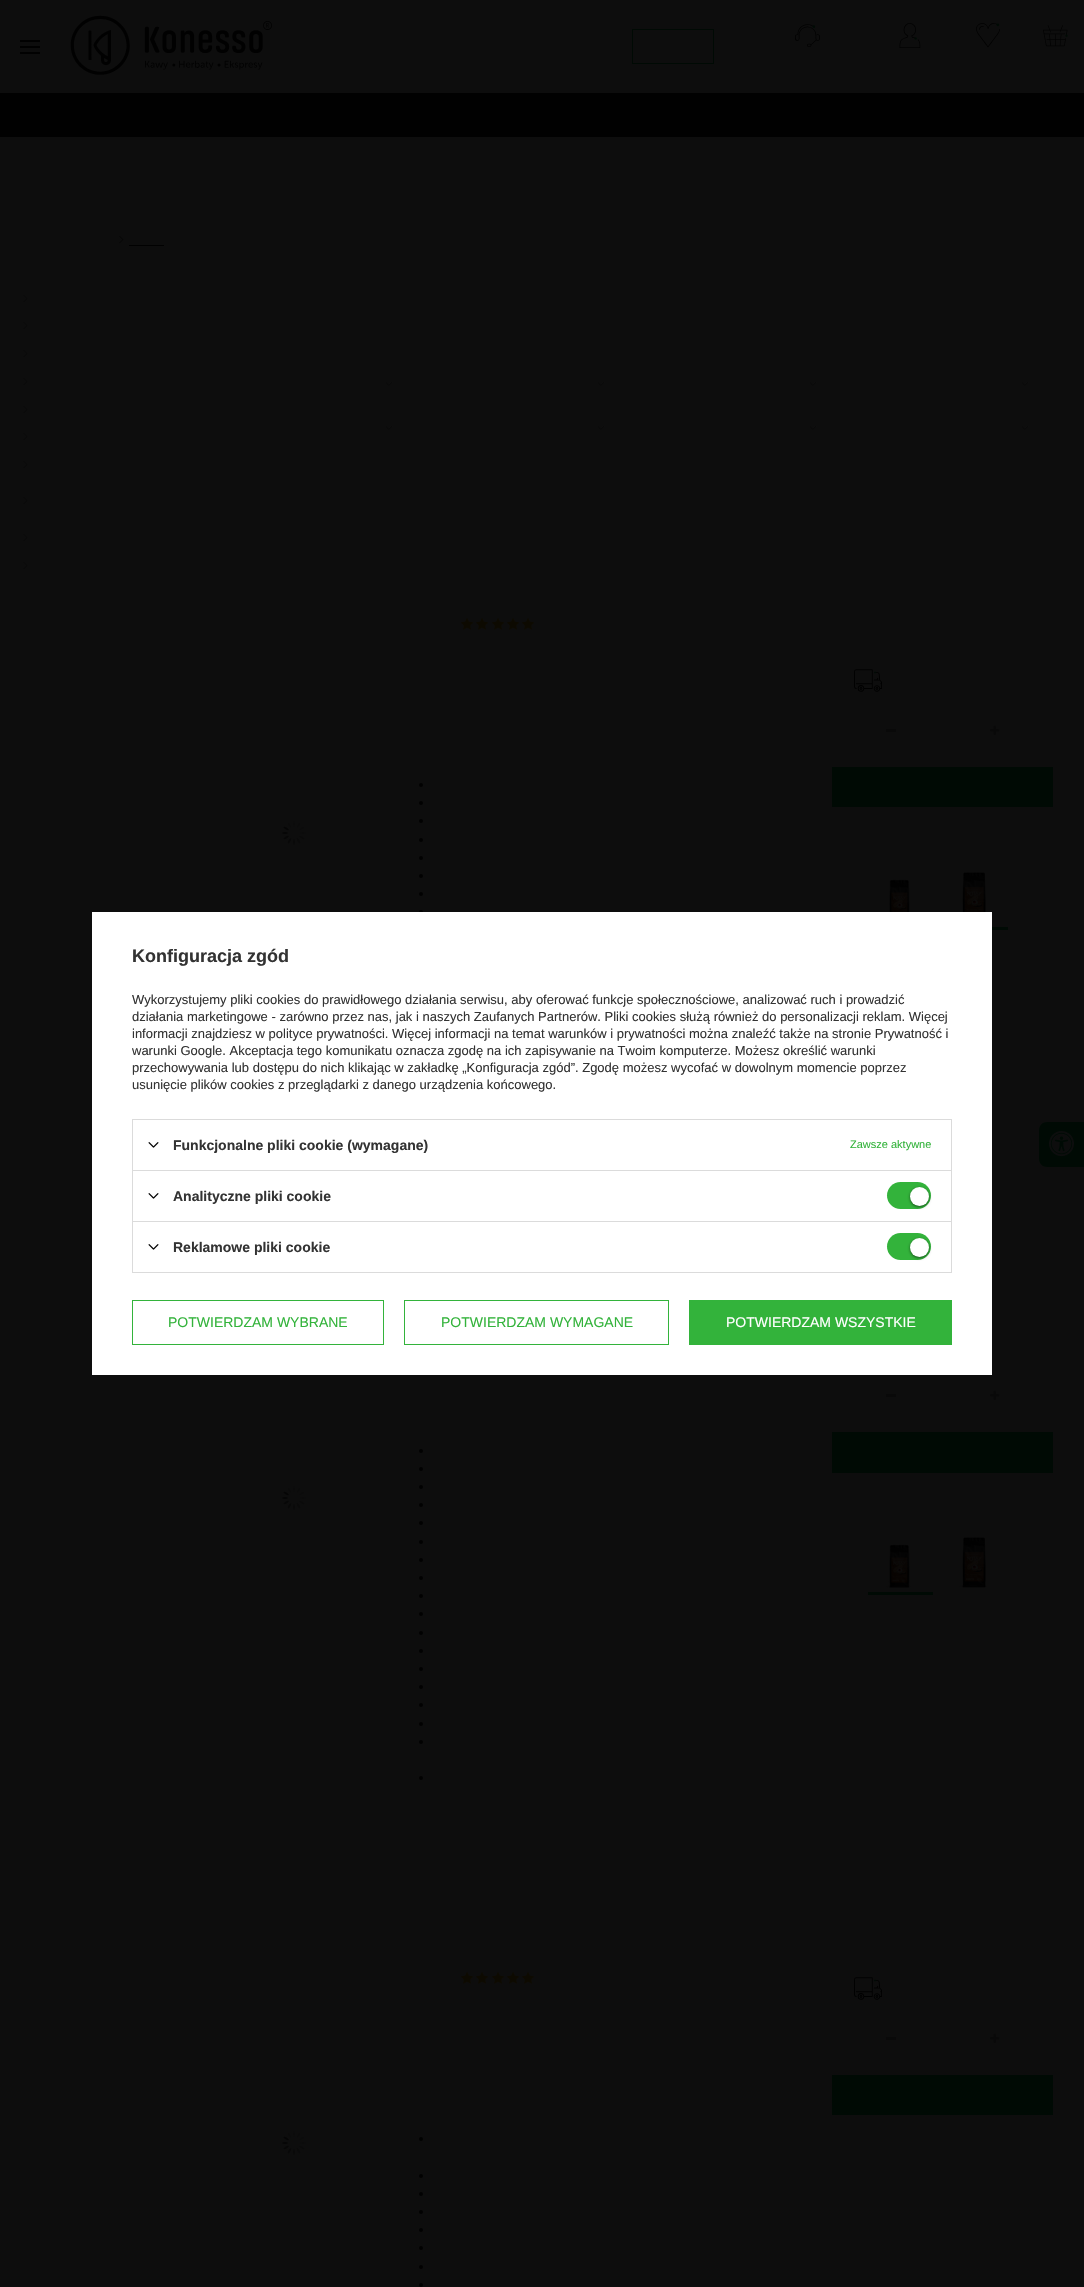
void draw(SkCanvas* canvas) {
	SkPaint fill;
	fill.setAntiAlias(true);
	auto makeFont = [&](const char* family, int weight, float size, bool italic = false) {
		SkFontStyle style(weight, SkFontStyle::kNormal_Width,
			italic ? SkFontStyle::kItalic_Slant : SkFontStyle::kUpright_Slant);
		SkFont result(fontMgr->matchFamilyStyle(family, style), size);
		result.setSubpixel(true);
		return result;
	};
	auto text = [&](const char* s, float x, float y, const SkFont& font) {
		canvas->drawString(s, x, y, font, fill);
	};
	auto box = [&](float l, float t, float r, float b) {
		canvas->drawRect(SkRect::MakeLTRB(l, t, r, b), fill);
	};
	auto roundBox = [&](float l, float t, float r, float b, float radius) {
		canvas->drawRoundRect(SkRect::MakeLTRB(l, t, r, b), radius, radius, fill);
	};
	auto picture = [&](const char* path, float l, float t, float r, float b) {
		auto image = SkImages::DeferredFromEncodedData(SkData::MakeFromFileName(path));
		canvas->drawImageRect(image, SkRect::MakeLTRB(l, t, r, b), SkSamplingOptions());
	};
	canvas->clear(0xFF0D0D0D);
	fill.setColor(0xFF010101);
	box(20, 46, 40, 48);
	box(20, 40, 40, 42);
	box(20, 52, 40, 54);
	picture("image0.png", 70, 15, 273, 75);
	fill.setStyle(SkPaint::kStroke_Style);
	fill.setStrokeWidth(1);
	fill.setColor(0xFF000A04);
	canvas->drawRect(SkRect::MakeLTRB(632.5f, 29.5f, 713.5f, 63.5f), fill);
	picture("image1.png", 795, 24, 820, 47);
	picture("image2.png", 899, 23, 921, 48);
	picture("image3.png", 976, 23, 1001, 48);
	picture("image4.png", 1043, 25, 1068, 47);
	fill.setStyle(SkPaint::kFill_Style);
	fill.setColor(0xFF010101);
	box(0, 93, 1084, 137);
	picture("image5.png", 119, 235, 124, 244);
	box(129, 245, 164, 246);
	picture("image6.png", 23, 295, 28, 303);
	picture("image6.png", 23, 322, 28, 330);
	picture("image6.png", 23, 350, 28, 358);
	picture("image6.png", 23, 378, 28, 386);
	picture("image6.png", 23, 406, 28, 414);
	picture("image6.png", 23, 433, 28, 441);
	picture("image6.png", 23, 461, 28, 469);
	picture("image6.png", 23, 497, 28, 505);
	picture("image6.png", 23, 534, 28, 542);
	picture("image6.png", 23, 562, 28, 570);
	picture("image7.png", 385, 382, 393, 386);
	picture("image7.png", 597, 382, 605, 386);
	picture("image7.png", 809, 382, 817, 386);
	picture("image7.png", 1021, 382, 1029, 386);
	picture("image7.png", 385, 426, 393, 430);
	picture("image7.png", 597, 426, 605, 430);
	picture("image7.png", 809, 426, 817, 430);
	picture("image7.png", 1021, 426, 1029, 430);
	picture("image8.png", 282, 821, 306, 845);
	picture("image9.png", 461, 618, 473, 630);
	picture("image9.png", 476, 618, 488, 630);
	picture("image9.png", 492, 618, 504, 630);
	picture("image9.png", 507, 618, 519, 630);
	picture("image9.png", 522, 618, 534, 630);
	canvas->drawCircle(421, 785, 2, fill);
	canvas->drawCircle(421, 803, 2, fill);
	canvas->drawCircle(421, 821, 2, fill);
	canvas->drawCircle(421, 840, 2, fill);
	canvas->drawCircle(421, 858, 2, fill);
	canvas->drawCircle(421, 876, 2, fill);
	canvas->drawCircle(421, 894, 2, fill);
	canvas->drawCircle(421, 912, 2, fill);
	picture("image10.png", 854, 669, 882, 692);
	fill.setColor(0xFF090909);
	box(886, 729, 896, 732);
	picture("image11.png", 990, 725, 1000, 735);
	fill.setColor(0xFF000A04);
	box(832, 767, 1053, 807);
	picture("image12.png", 886, 878, 911, 912);
	picture("image13.png", 959, 871, 988, 912);
	box(992, 927, 1008, 930);
	picture("image8.png", 282, 1486, 306, 1510);
	fill.setColor(0xFF010101);
	canvas->drawCircle(421, 1451, 2, fill);
	canvas->drawCircle(421, 1469, 2, fill);
	canvas->drawCircle(421, 1487, 2, fill);
	canvas->drawCircle(421, 1505, 2, fill);
	canvas->drawCircle(421, 1523, 2, fill);
	canvas->drawCircle(421, 1542, 2, fill);
	canvas->drawCircle(421, 1560, 2, fill);
	canvas->drawCircle(421, 1578, 2, fill);
	canvas->drawCircle(421, 1596, 2, fill);
	canvas->drawCircle(421, 1614, 2, fill);
	canvas->drawCircle(421, 1633, 2, fill);
	canvas->drawCircle(421, 1651, 2, fill);
	canvas->drawCircle(421, 1669, 2, fill);
	canvas->drawCircle(421, 1687, 2, fill);
	canvas->drawCircle(421, 1705, 2, fill);
	canvas->drawCircle(421, 1724, 2, fill);
	canvas->drawCircle(421, 1742, 2, fill);
	canvas->drawCircle(421, 1778, 2, fill);
	fill.setColor(0xFF090909);
	box(886, 1394, 896, 1397);
	picture("image11.png", 990, 1390, 1000, 1400);
	fill.setColor(0xFF000A04);
	box(832, 1432, 1053, 1473);
	picture("image14.png", 886, 1543, 911, 1588);
	box(868, 1592, 933, 1595);
	picture("image15.png", 959, 1536, 988, 1588);
	picture("image8.png", 282, 2131, 306, 2155);
	picture("image9.png", 461, 1972, 473, 1984);
	picture("image9.png", 476, 1972, 488, 1984);
	picture("image9.png", 492, 1972, 504, 1984);
	picture("image9.png", 507, 1972, 519, 1984);
	picture("image9.png", 522, 1972, 534, 1984);
	fill.setColor(0xFF010101);
	canvas->drawCircle(421, 2139, 2, fill);
	canvas->drawCircle(421, 2176, 2, fill);
	canvas->drawCircle(421, 2194, 2, fill);
	canvas->drawCircle(421, 2212, 2, fill);
	canvas->drawCircle(421, 2230, 2, fill);
	canvas->drawCircle(421, 2248, 2, fill);
	canvas->drawCircle(421, 2267, 2, fill);
	canvas->drawCircle(421, 2285, 2, fill);
	picture("image10.png", 854, 1977, 882, 2000);
	fill.setColor(0xFF090909);
	box(886, 2037, 896, 2040);
	picture("image11.png", 990, 2033, 1000, 2043);
	fill.setColor(0xFF000A04);
	box(832, 2075, 1053, 2115);
	fill.setColor(0xFFFFFFFF);
	box(92, 912, 992, 1375);
	fill.setColor(0xFFDBDBDB);
	box(132, 1119, 952, 1120);
	box(951, 1119, 952, 1170);
	box(132, 1119, 133, 1170);
	picture("image16.png", 148, 1142, 159, 1148);
	box(132, 1170, 952, 1171);
	box(951, 1170, 952, 1221);
	box(132, 1170, 133, 1221);
	picture("image16.png", 148, 1193, 159, 1199);
	fill.setColor(0xFF33B33B);
	roundBox(887, 1182, 931, 1209, 13.5f);
	fill.setColor(0x8F000000);
	fill.setMaskFilter(SkMaskFilter::MakeBlur(kNormal_SkBlurStyle, 1.5f));
	canvas->drawRoundRect(SkRect::MakeLTRB(910, 1188, 929, 1207), 9.5f, 9.5f, fill);
	fill.setMaskFilter(nullptr);
	fill.setColor(0xFFFFFFFF);
	canvas->drawCircle(919.5f, 1196.5f, 9.5f, fill);
	fill.setStyle(SkPaint::kStroke_Style);
	fill.setColor(0xFFDBDBDB);
	canvas->drawRect(SkRect::MakeLTRB(132.5f, 1221.5f, 951.5f, 1272.5f), fill);
	picture("image16.png", 148, 1244, 159, 1250);
	fill.setStyle(SkPaint::kFill_Style);
	fill.setColor(0xFF33B33B);
	roundBox(887, 1233, 931, 1260, 13.5f);
	fill.setColor(0x8F000000);
	fill.setMaskFilter(SkMaskFilter::MakeBlur(kNormal_SkBlurStyle, 1.5f));
	canvas->drawRoundRect(SkRect::MakeLTRB(910, 1239, 929, 1258), 9.5f, 9.5f, fill);
	fill.setMaskFilter(nullptr);
	fill.setColor(0xFFFFFFFF);
	canvas->drawCircle(919.5f, 1247.5f, 9.5f, fill);
	fill.setStyle(SkPaint::kStroke_Style);
	fill.setColor(0xFF33B33B);
	canvas->drawRect(SkRect::MakeLTRB(132.5f, 1300.5f, 383.5f, 1344.5f), fill);
	canvas->drawRect(SkRect::MakeLTRB(404.5f, 1300.5f, 668.5f, 1344.5f), fill);
	fill.setStyle(SkPaint::kFill_Style);
	box(689, 1300, 952, 1345);
	fill.setColor(0xFF000A04);
	canvas->drawPath(SkPathBuilder().moveTo(1047, 1122).lineTo(1084, 1122).lineTo(1084, 1167).lineTo(1047, 1167).cubicTo(1042.5f, 1167, 1039, 1163.5f, 1039, 1159).lineTo(1039, 1130).cubicTo(1039, 1125.5f, 1042.5f, 1122, 1047, 1122).close().detach(), fill);
	picture("image17.png", 1049, 1131, 1074, 1157);
	auto font1 = makeFont("Liberation Sans", 700, 18);
	fill.setColor(0xFF333333);
	text("Konfiguracja zgód", 132, 962, font1);
	auto font2 = makeFont("Liberation Sans", 400, 13);
	text("Wykorzystujemy pliki cookies do prawidłowego działania serwisu, aby oferować funkcje społecznościowe, analizować ruch i prowadzić", 132, 1004, font2);
	text("działania marketingowe - zarówno przez nas, jak i naszych Zaufanych Partnerów. Pliki cookies służą również do personalizacji reklam. Więcej", 132, 1021, font2);
	text("informacji znajdziesz w polityce prywatności. Więcej informacji na temat warunków i prywatności można znaleźć także na stronie Prywatność i", 132, 1038, font2);
	text("warunki Google. Akceptacja tego komunikatu oznacza zgodę na ich zapisywanie na Twoim komputerze. Możesz określić warunki", 132, 1055, font2);
	text("przechowywania lub dostępu do nich klikając w zakładkę „Konfiguracja zgód”. Zgodę możesz wycofać w dowolnym momencie poprzez", 132, 1072, font2);
	text("usunięcie plików cookies z przeglądarki z danego urządzenia końcowego.", 132, 1089, font2);
	auto font3 = makeFont("Liberation Sans", 700, 14);
	text("Funkcjonalne pliki cookie (wymagane)", 173, 1150, font3);
	auto font4 = makeFont("Liberation Sans", 400, 11);
	fill.setColor(0xFF33B33B);
	text("Zawsze aktywne", 850, 1148, font4);
	fill.setColor(0xFF333333);
	text("Analityczne pliki cookie", 173, 1201, font3);
	text("Reklamowe pliki cookie", 173, 1252, font3);
	auto font5 = makeFont("Liberation Sans", 400, 14);
	fill.setColor(0xFF33B33B);
	text("POTWIERDZAM WYBRANE", 168, 1327, font5);
	text("POTWIERDZAM WYMAGANE", 441, 1327, font5);
	fill.setColor(0xFFFFFFFF);
	text("POTWIERDZAM WSZYSTKIE", 726, 1327, font5);
}
